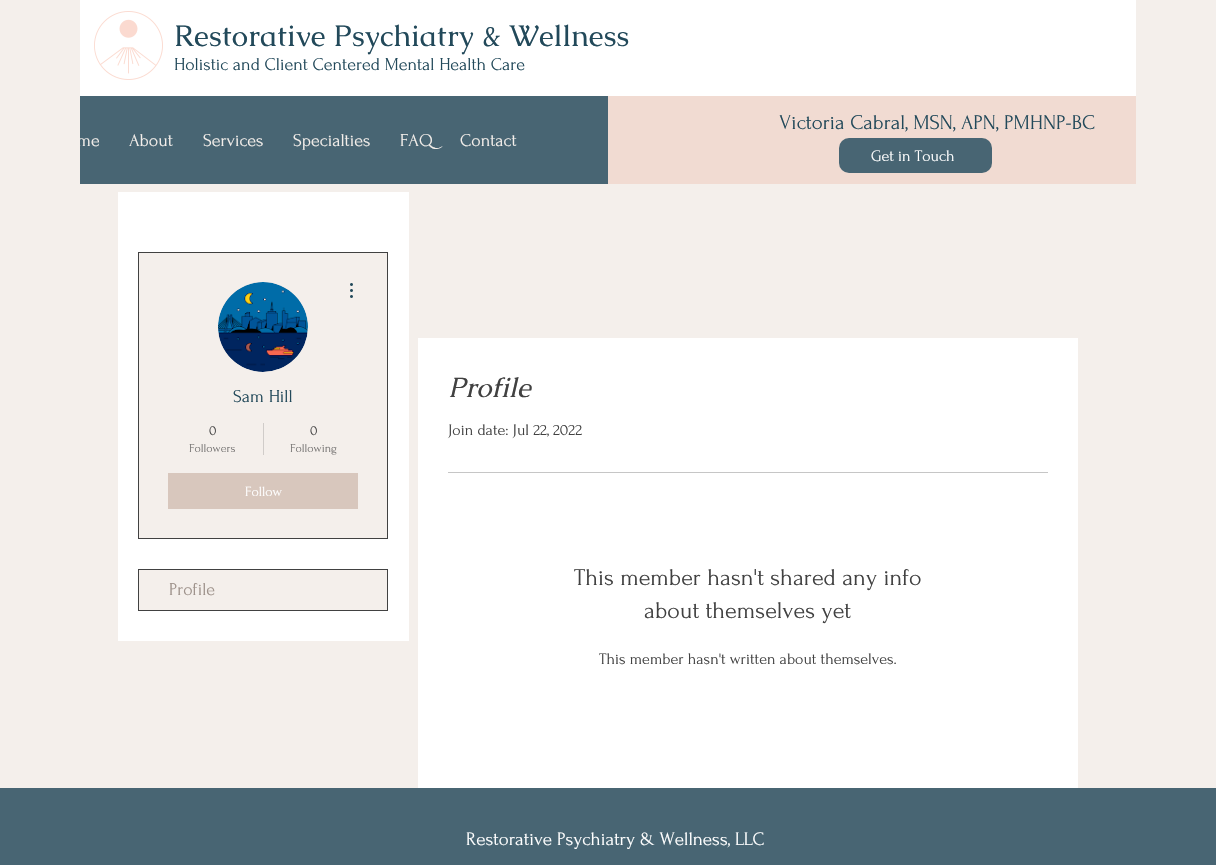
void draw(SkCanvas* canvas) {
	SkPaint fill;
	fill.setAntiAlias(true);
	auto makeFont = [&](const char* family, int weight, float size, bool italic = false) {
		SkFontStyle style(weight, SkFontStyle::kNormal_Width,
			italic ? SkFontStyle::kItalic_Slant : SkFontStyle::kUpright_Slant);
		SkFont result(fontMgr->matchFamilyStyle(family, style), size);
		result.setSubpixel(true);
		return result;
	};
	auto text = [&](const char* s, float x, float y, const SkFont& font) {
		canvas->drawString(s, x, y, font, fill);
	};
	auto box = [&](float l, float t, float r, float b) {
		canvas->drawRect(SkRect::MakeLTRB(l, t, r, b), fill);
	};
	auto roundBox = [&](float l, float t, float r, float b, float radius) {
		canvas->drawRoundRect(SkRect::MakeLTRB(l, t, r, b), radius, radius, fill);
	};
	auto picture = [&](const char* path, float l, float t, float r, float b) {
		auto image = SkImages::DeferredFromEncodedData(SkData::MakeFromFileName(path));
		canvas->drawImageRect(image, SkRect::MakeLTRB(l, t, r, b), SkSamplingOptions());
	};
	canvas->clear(0xFFF4EFEB);
	fill.setColor(0xFFFFFFFF);
	box(80, 0, 1136, 96);
	picture("image0.png", 94, 11, 163, 80);
	fill.setColor(0xFFF1DBD2);
	box(608, 96, 1136, 184);
	fill.setColor(0xFF486573);
	box(80, 96, 608, 184);
	roundBox(839, 138, 992, 173, 10);
	fill.setColor(0xFFFFFFFF);
	box(118, 192, 409, 641);
	fill.setColor(0xFFF4EFEB);
	canvas->drawRect(SkRect::MakeLTRB(138.5f, 252.5f, 387.5f, 538.5f), fill);
	fill.setStyle(SkPaint::kStroke_Style);
	fill.setStrokeWidth(1);
	fill.setColor(0xFF414141);
	canvas->drawRect(SkRect::MakeLTRB(138.5f, 252.5f, 387.5f, 538.5f), fill);
	fill.setStyle(SkPaint::kFill_Style);
	fill.setColor(0xFFD8D8D8);
	canvas->drawCircle(263, 327, 45, fill);
	picture("image1.png", 218, 282, 308, 372);
	picture("image2.png", 350, 283, 353, 298);
	fill.setColor(0xFFD0CCC9);
	box(263, 423, 264, 455);
	fill.setColor(0xFFD8C7BD);
	box(168, 473, 358, 509);
	fill.setStyle(SkPaint::kStroke_Style);
	fill.setColor(0xFF414141);
	canvas->drawRect(SkRect::MakeLTRB(138.5f, 569.5f, 387.5f, 610.5f), fill);
	fill.setStyle(SkPaint::kFill_Style);
	fill.setColor(0xFFF4EFEB);
	box(139, 570, 387, 610);
	fill.setColor(0xFFFFFFFF);
	box(418, 338, 1078, 788);
	fill.setColor(0xFFC6C6C6);
	box(448, 472, 1048, 473);
	fill.setColor(0xFF486573);
	box(0, 788, 1216, 865);
	auto font1 = makeFont("Caudex", 400, 30);
	fill.setColor(0xFF22495A);
	text("Restorative Psychiatry & Wellness", 174, 46, font1);
	auto font2 = makeFont("Forum", 400, 18);
	text("Holistic and Client Centered Mental Health Care", 174, 70, font2);
	auto font3 = makeFont("Forum", 400, 21);
	text("Victoria Cabral, MSN, APN, PMHNP-BC", 779, 129, font3);
	fill.setColor(0xFFF4EFEB);
	text("me", 77, 146, font2);
	text("About", 129, 146, font2);
	text("Services", 203, 146, font2);
	text("Specialties", 293, 146, font2);
	text("FAQ", 400, 146, font2);
	text("Contact", 460, 146, font2);
	auto font4 = makeFont("Forum", 400, 16);
	fill.setColor(0xFFFFFFFF);
	text("Get in Touch", 871, 161, font4);
	fill.setColor(0xFF22495A);
	text("Sam Hill", 233, 402, font2);
	auto font5 = makeFont("Forum", 400, 14);
	fill.setColor(0xFF414141);
	text("0", 209, 435, font5);
	auto font6 = makeFont("Forum", 400, 12);
	fill.setColor(0xFF777574);
	text("Followers", 189, 452, font6);
	fill.setColor(0xFF414141);
	text("0", 310, 435, font5);
	fill.setColor(0xFF777574);
	text("Following", 290, 452, font6);
	fill.setColor(0xFFFFFFFF);
	text("Follow", 245, 496, font5);
	fill.setColor(0xFF9E928B);
	text("Profile", 169, 595, font2);
	auto font7 = makeFont("Caudex", 400, 28, true);
	fill.setColor(0xFF414141);
	text("Profile", 448, 397, font7);
	text("Join date: Jul 22, 2022", 448, 435, font4);
	auto font8 = makeFont("Forum", 400, 24);
	text("This member hasn't shared any info", 574, 585, font8);
	text("about themselves yet", 644, 618, font8);
	text("This member hasn't written about themselves.", 599, 664, font4);
	auto font9 = makeFont("Forum", 400, 19);
	fill.setColor(0xFFFFFFFF);
	text("Restorative Psychiatry & Wellness, LLC", 466, 845, font9);
}
